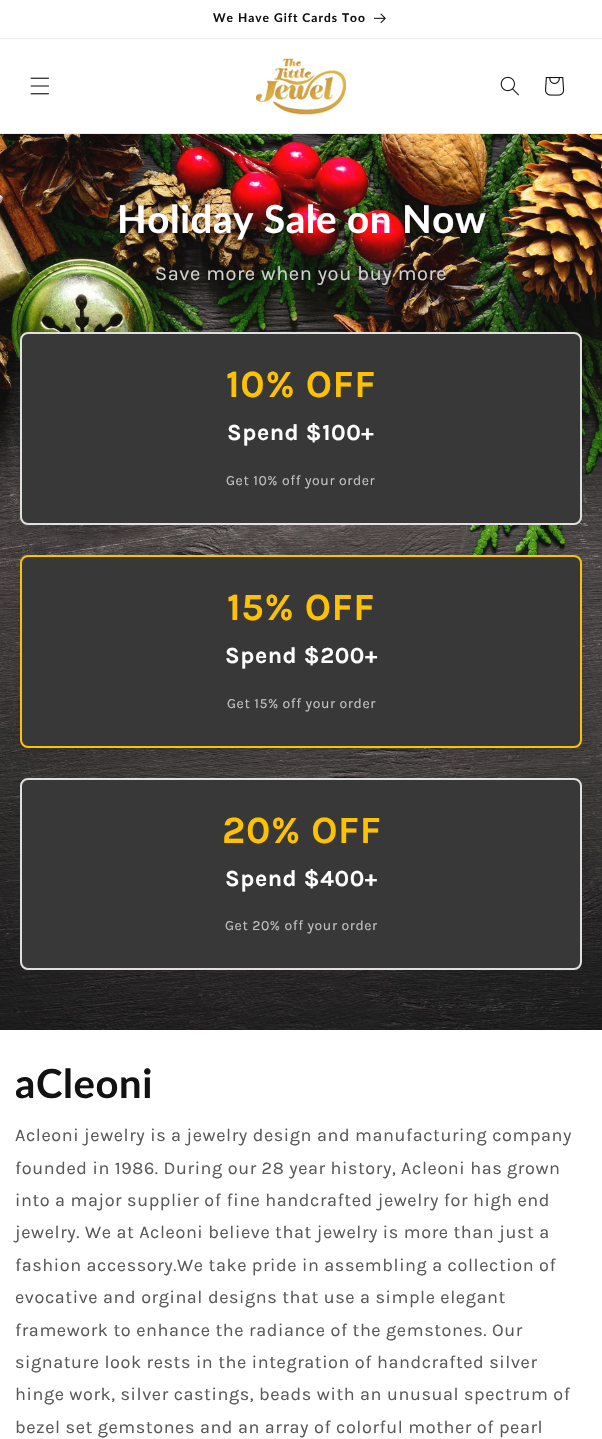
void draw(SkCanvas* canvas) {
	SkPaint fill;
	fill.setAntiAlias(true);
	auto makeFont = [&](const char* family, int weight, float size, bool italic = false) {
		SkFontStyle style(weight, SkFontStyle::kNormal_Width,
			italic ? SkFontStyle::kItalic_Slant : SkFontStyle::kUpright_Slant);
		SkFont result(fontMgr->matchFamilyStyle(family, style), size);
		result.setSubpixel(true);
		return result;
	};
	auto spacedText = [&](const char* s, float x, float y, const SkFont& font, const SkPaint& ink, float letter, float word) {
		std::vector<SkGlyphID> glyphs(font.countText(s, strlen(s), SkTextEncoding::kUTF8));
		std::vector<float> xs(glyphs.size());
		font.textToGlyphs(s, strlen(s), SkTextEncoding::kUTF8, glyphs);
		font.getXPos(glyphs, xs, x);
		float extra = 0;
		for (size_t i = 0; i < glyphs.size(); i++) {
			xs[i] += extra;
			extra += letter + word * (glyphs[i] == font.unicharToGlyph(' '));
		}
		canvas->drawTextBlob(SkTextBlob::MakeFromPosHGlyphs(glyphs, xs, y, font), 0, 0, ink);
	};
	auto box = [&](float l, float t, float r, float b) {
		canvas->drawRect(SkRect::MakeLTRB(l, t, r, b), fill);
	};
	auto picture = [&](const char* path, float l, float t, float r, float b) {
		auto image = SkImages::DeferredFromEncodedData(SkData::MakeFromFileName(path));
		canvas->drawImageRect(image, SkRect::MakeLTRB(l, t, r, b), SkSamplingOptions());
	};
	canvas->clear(0xFFFFFFFF);
	fill.setColor(0xFFECECEC);
	box(0, 38, 602, 39);
	picture("image0.png", 374, 13, 386, 23);
	box(0, 133, 602, 134);
	picture("image1.png", 30, 77, 50, 95);
	picture("image2.png", 256, 57, 346, 116);
	picture("image3.png", 500, 76, 519, 96);
	picture("image4.png", 545, 77, 565, 96);
	picture("image5.png", 0, 134, 602, 1030);
	fill.setColor(0xFF383838);
	canvas->drawRoundRect(SkRect::MakeLTRB(21, 333, 581, 524), 7, 7, fill);
	fill.setStyle(SkPaint::kStroke_Style);
	fill.setStrokeWidth(2);
	fill.setColor(0xFFE0E0E0);
	canvas->drawRoundRect(SkRect::MakeLTRB(21, 333, 581, 524), 7, 7, fill);
	fill.setStyle(SkPaint::kFill_Style);
	fill.setColor(0x1F000000);
	fill.setMaskFilter(SkMaskFilter::MakeBlur(kNormal_SkBlurStyle, 12));
	canvas->drawRoundRect(SkRect::MakeLTRB(20, 563, 582, 756), 8, 8, fill);
	fill.setMaskFilter(nullptr);
	fill.setColor(0xFF383838);
	canvas->drawRoundRect(SkRect::MakeLTRB(21, 556, 581, 747), 7, 7, fill);
	fill.setStyle(SkPaint::kStroke_Style);
	fill.setColor(0xFFFFC200);
	canvas->drawRoundRect(SkRect::MakeLTRB(21, 556, 581, 747), 7, 7, fill);
	fill.setStyle(SkPaint::kFill_Style);
	fill.setColor(0xFF383838);
	canvas->drawRoundRect(SkRect::MakeLTRB(21, 779, 581, 969), 7, 7, fill);
	fill.setStyle(SkPaint::kStroke_Style);
	fill.setColor(0xFFE0E0E0);
	canvas->drawRoundRect(SkRect::MakeLTRB(21, 779, 581, 969), 7, 7, fill);
	auto font1 = makeFont("Lato", 700, 12);
	fill.setStyle(SkPaint::kFill_Style);
	fill.setColor(0xFF121212);
	spacedText("We Have Gift Cards Too", 213, 22, font1, fill, 1, 0);
	auto font2 = makeFont("Lato", 700, 38.5f);
	fill.setColor(0xFFFFFFFF);
	spacedText("Holiday Sale on Now", 117, 233, font2, fill, 0.6f, 0);
	auto font3 = makeFont("Karla", 400, 20);
	fill.setColor(0xFFD2D3D0);
	spacedText("Save more when you buy more", 155, 280, font3, fill, 0.6f, 0);
	auto font4 = makeFont("Karla", 700, 38.5f);
	fill.setColor(0xFFFFC200);
	spacedText("10% OFF", 226, 397, font4, fill, 0.6f, 0);
	auto font5 = makeFont("Karla", 700, 23);
	fill.setColor(0xFFFFFFFF);
	spacedText("Spend $100+", 227, 440, font5, fill, 0.6f, 0);
	auto font6 = makeFont("Karla", 400, 14);
	fill.setColor(0xFFC3C3C3);
	spacedText("Get 10% off your order", 226, 485, font6, fill, 0.6f, 0);
	fill.setColor(0xFFFFC200);
	spacedText("15% OFF", 227, 620, font4, fill, 0.6f, 0);
	fill.setColor(0xFFFFFFFF);
	spacedText("Spend $200+", 225, 663, font5, fill, 0.6f, 0);
	fill.setColor(0xFFC3C3C3);
	spacedText("Get 15% off your order", 227, 708, font6, fill, 0.6f, 0);
	fill.setColor(0xFFFFC200);
	spacedText("20% OFF", 222, 843, font4, fill, 0.6f, 0);
	fill.setColor(0xFFFFFFFF);
	spacedText("Spend $400+", 225, 886, font5, fill, 0.6f, 0);
	fill.setColor(0xFFC3C3C3);
	spacedText("Get 20% off your order", 225, 930, font6, fill, 0.6f, 0);
	auto font7 = makeFont("Lato", 700, 40);
	fill.setColor(0xFF121212);
	spacedText("aCleoni", 15, 1098, font7, fill, 0.6f, 0);
	auto font8 = makeFont("Karla", 400, 18);
	fill.setColor(0xFF595959);
	spacedText("Acleoni jewelry is a jewelry design and manufacturing company", 15, 1141, font8, fill, 0.6f, 0);
	spacedText("founded in 1986. During our 28 year history, Acleoni has grown", 15, 1174, font8, fill, 0.6f, 0);
	spacedText("into a major supplier of fine handcrafted jewelry for high end", 15, 1206, font8, fill, 0.6f, 0);
	spacedText("jewelry. We at Acleoni believe that jewelry is more than just a", 15, 1238, font8, fill, 0.6f, 0);
	spacedText("fashion accessory.We take pride in assembling a collection of", 15, 1271, font8, fill, 0.6f, 0);
	spacedText("evocative and orginal designs that use a simple elegant", 15, 1303, font8, fill, 0.6f, 0);
	spacedText("framework to enhance the radiance of the gemstones. Our", 15, 1336, font8, fill, 0.6f, 0);
	spacedText("signature look rests in the integration of handcrafted silver", 15, 1368, font8, fill, 0.6f, 0);
	spacedText("hinge work, silver castings, beads with an unusual spectrum of", 15, 1400, font8, fill, 0.6f, 0);
	spacedText("bezel set gemstones and an array of colorful mother of pearl", 15, 1433, font8, fill, 0.6f, 0);
}
